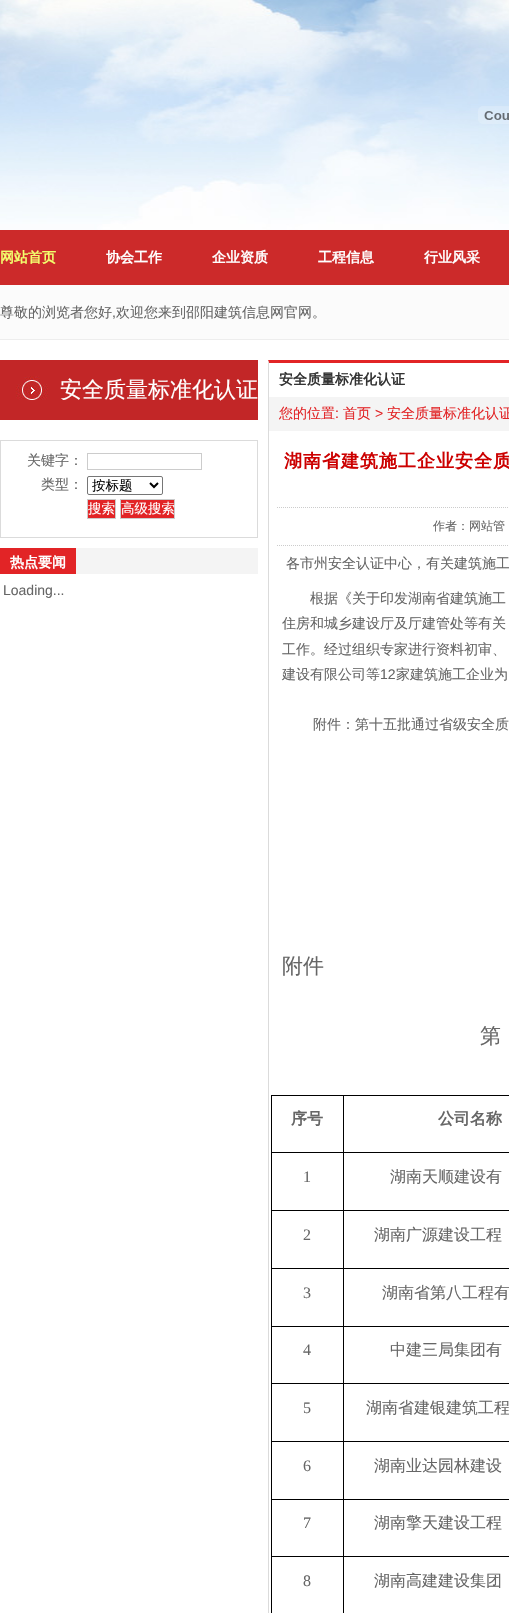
void draw(SkCanvas* canvas) {
	SkPaint fill;
	fill.setAntiAlias(true);
	auto makeFont = [&](const char* family, int weight, float size, bool italic = false) {
		SkFontStyle style(weight, SkFontStyle::kNormal_Width,
			italic ? SkFontStyle::kItalic_Slant : SkFontStyle::kUpright_Slant);
		SkFont result(fontMgr->matchFamilyStyle(family, style), size);
		result.setSubpixel(true);
		return result;
	};
	auto text = [&](const char* s, float x, float y, const SkFont& font) {
		canvas->drawString(s, x, y, font, fill);
	};
	auto spacedText = [&](const char* s, float x, float y, const SkFont& font, const SkPaint& ink, float letter, float word) {
		std::vector<SkGlyphID> glyphs(font.countText(s, strlen(s), SkTextEncoding::kUTF8));
		std::vector<float> xs(glyphs.size());
		font.textToGlyphs(s, strlen(s), SkTextEncoding::kUTF8, glyphs);
		font.getXPos(glyphs, xs, x);
		float extra = 0;
		for (size_t i = 0; i < glyphs.size(); i++) {
			xs[i] += extra;
			extra += letter + word * (glyphs[i] == font.unicharToGlyph(' '));
		}
		canvas->drawTextBlob(SkTextBlob::MakeFromPosHGlyphs(glyphs, xs, y, font), 0, 0, ink);
	};
	auto box = [&](float l, float t, float r, float b) {
		canvas->drawRect(SkRect::MakeLTRB(l, t, r, b), fill);
	};
	auto picture = [&](const char* path, float l, float t, float r, float b) {
		auto image = SkImages::DeferredFromEncodedData(SkData::MakeFromFileName(path));
		canvas->drawImageRect(image, SkRect::MakeLTRB(l, t, r, b), SkSamplingOptions());
	};
	canvas->clear(0xFFFFFFFF);
	picture("image0.png", 0, 0, 509, 230);
	picture("image1.png", 478, 106, 509, 124);
	fill.setColor(0xFFCC2A2A);
	box(0, 230, 509, 285);
	fill.setColor(0xFFFBFBFB);
	box(0, 285, 509, 339);
	fill.setColor(0xFFEDEDED);
	box(0, 339, 509, 340);
	picture("image2.png", 0, 360, 258, 420);
	fill.setStyle(SkPaint::kStroke_Style);
	fill.setStrokeWidth(1);
	fill.setColor(0xFFDBDBDB);
	canvas->drawRect(SkRect::MakeLTRB(0.5f, 440.5f, 257.5f, 537.5f), fill);
	fill.setColor(0xFFCCCCCC);
	canvas->drawRect(SkRect::MakeLTRB(87.5f, 453.5f, 201.5f, 469.5f), fill);
	fill.setColor(0xFF767676);
	canvas->drawRoundRect(SkRect::MakeLTRB(87.5f, 476.5f, 162.5f, 494.5f), 1.5f, 1.5f, fill);
	fill.setStrokeWidth(2);
	fill.setColor(0xFF000000);
	canvas->drawPath(SkPathBuilder().moveTo(150, 483).lineTo(154, 487).lineTo(158, 483).detach(), fill);
	fill.setStyle(SkPaint::kFill_Style);
	fill.setColor(0xFFE22426);
	canvas->drawRect(SkRect::MakeLTRB(87.5f, 499.5f, 115.5f, 518.5f), fill);
	fill.setStyle(SkPaint::kStroke_Style);
	fill.setStrokeWidth(1);
	fill.setColor(0xFFCCCCCC);
	canvas->drawRect(SkRect::MakeLTRB(87.5f, 499.5f, 115.5f, 518.5f), fill);
	fill.setStyle(SkPaint::kFill_Style);
	fill.setColor(0xFFE22426);
	canvas->drawRect(SkRect::MakeLTRB(120.5f, 499.5f, 174.5f, 518.5f), fill);
	fill.setStyle(SkPaint::kStroke_Style);
	fill.setColor(0xFFCCCCCC);
	canvas->drawRect(SkRect::MakeLTRB(120.5f, 499.5f, 174.5f, 518.5f), fill);
	fill.setStyle(SkPaint::kFill_Style);
	fill.setColor(0xFFF4F4F4);
	box(76, 548, 258, 574);
	fill.setColor(0xFFE22426);
	box(0, 548, 76, 574);
	canvas->drawPath(SkPathBuilder().moveTo(268, 360).lineTo(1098, 360).lineTo(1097, 363).lineTo(269, 363).close().detach(), fill);
	fill.setColor(0xFFDBDBDB);
	canvas->drawPath(SkPathBuilder().moveTo(268, 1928).lineTo(268, 360).lineTo(269, 363).lineTo(269, 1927).close().detach(), fill);
	fill.setColor(0xFFF4F4F4);
	box(269, 397, 509, 431);
	fill.setStyle(SkPaint::kStroke_Style);
	fill.setColor(0xFFCCCCCC);
	fill.setPathEffect(SkDashPathEffect::Make({{1, 1}}, 0));
	canvas->drawPath(SkPathBuilder().moveTo(277, 507.5f).lineTo(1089, 507.5f).detach(), fill);
	fill.setPathEffect(nullptr);
	fill.setPathEffect(SkDashPathEffect::Make({{1, 1}}, 0));
	canvas->drawPath(SkPathBuilder().moveTo(277, 545.5f).lineTo(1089, 545.5f).detach(), fill);
	fill.setPathEffect(nullptr);
	fill.setStyle(SkPaint::kFill_Style);
	fill.setColor(0xFF000000);
	box(271, 1095, 509, 1096);
	box(343, 1556, 344, 1613);
	box(343, 1556, 509, 1557);
	box(343, 1499, 344, 1557);
	box(343, 1499, 509, 1500);
	box(343, 1441, 344, 1500);
	box(343, 1441, 509, 1442);
	box(343, 1383, 344, 1442);
	box(343, 1383, 509, 1384);
	box(343, 1326, 344, 1384);
	box(343, 1326, 509, 1327);
	box(343, 1268, 344, 1327);
	box(343, 1268, 509, 1269);
	box(343, 1210, 344, 1269);
	box(343, 1210, 509, 1211);
	box(343, 1152, 344, 1211);
	box(343, 1152, 509, 1153);
	box(343, 1095, 344, 1153);
	box(271, 1556, 272, 1613);
	box(271, 1556, 344, 1557);
	box(271, 1499, 272, 1557);
	box(271, 1499, 344, 1500);
	box(271, 1441, 272, 1500);
	box(271, 1441, 344, 1442);
	box(271, 1383, 272, 1442);
	box(271, 1383, 344, 1384);
	box(271, 1326, 272, 1384);
	box(271, 1326, 344, 1327);
	box(271, 1268, 272, 1327);
	box(271, 1268, 344, 1269);
	box(271, 1210, 272, 1269);
	box(271, 1210, 344, 1211);
	box(271, 1152, 272, 1211);
	box(271, 1152, 344, 1153);
	box(271, 1095, 272, 1153);
	auto font1 = makeFont("WenQuanYi Zen Hei", 700, 14);
	fill.setColor(0xFFF3FF6D);
	text("网站首页", 0, 262, font1);
	fill.setColor(0xFFFFFFFF);
	text("协会工作", 106, 262, font1);
	text("企业资质", 212, 262, font1);
	text("工程信息", 318, 262, font1);
	text("行业风采", 424, 262, font1);
	auto font2 = makeFont("WenQuanYi Zen Hei", 500, 14);
	fill.setColor(0xFF666666);
	text("尊敬的浏览者您好", 0, 317, font2);
	auto font3 = makeFont("Liberation Sans", 400, 14);
	text(",", 112, 317, font3);
	text("欢迎您来到邵阳建筑信息网官网。", 116, 317, font2);
	auto font4 = makeFont("WenQuanYi Zen Hei", 500, 22);
	fill.setColor(0xFFFFFFFF);
	text("安全质量标准化认证", 60, 397, font4);
	fill.setColor(0xFF666666);
	text("关键字：", 27, 465, font2);
	text("类型：", 41, 489, font2);
	auto font5 = makeFont("WenQuanYi Zen Hei", 500, 13.5f);
	fill.setColor(0xFF000000);
	text("按标题", 92, 490, font5);
	fill.setColor(0xFFFFFFFF);
	text("搜索", 88, 513, font5);
	text("高级搜索", 121, 513, font5);
	text("热点要闻", 10, 567, font1);
	fill.setColor(0xFF666666);
	text("Loading...", 3, 595, font3);
	fill.setColor(0xFF333333);
	text("安全质量标准化认证", 279, 384, font1);
	fill.setColor(0xFFE22426);
	text("您的位置", 279, 418, font2);
	text(":", 335, 418, font3);
	text("首页", 343, 418, font2);
	text(">", 375, 418, font3);
	text("安全质量标准化认证", 387, 418, font2);
	auto font6 = makeFont("WenQuanYi Zen Hei", 700, 18);
	fill.setColor(0xFFCC0000);
	spacedText("湖南省建筑施工企业安全质", 284, 467, font6, fill, 1, 0);
	auto font7 = makeFont("WenQuanYi Zen Hei", 500, 12);
	fill.setColor(0xFF666666);
	text("作者：网站管", 433, 530, font7);
	text("各市州安全认证中心，有关建筑施工", 286, 568, font2);
	text("根据《关于印发湖南省建筑施工", 310, 603, font2);
	text("住房和城乡建设厅及厅建管处等有关", 282, 628, font2);
	text("工作。经过组织专家进行资料初审、", 282, 654, font2);
	text("建设有限公司等", 282, 679, font2);
	text("12", 380, 679, font3);
	text("家建筑施工企业为", 396, 679, font2);
	text("附件：第十五批通过省级安全质", 313, 729, font2);
	auto font8 = makeFont("WenQuanYi Zen Hei", 500, 21);
	text("附件", 282, 973, font8);
	text("第", 480, 1043, font8);
	auto font9 = makeFont("WenQuanYi Zen Hei", 700, 16);
	text("序号", 291, 1124, font9);
	text("公司名称", 438, 1124, font9);
	auto font10 = makeFont("Liberation Serif", 400, 16);
	text("1", 303, 1182, font10);
	auto font11 = makeFont("WenQuanYi Zen Hei", 500, 16);
	text("湖南天顺建设有", 390, 1182, font11);
	text("2", 303, 1240, font10);
	text("湖南广源建设工程", 374, 1240, font11);
	text("3", 303, 1298, font10);
	text("湖南省第八工程有", 382, 1298, font11);
	text("4", 303, 1355, font10);
	text("中建三局集团有", 390, 1355, font11);
	text("5", 303, 1413, font10);
	text("湖南省建银建筑工程", 366, 1413, font11);
	text("6", 303, 1471, font10);
	text("湖南业达园林建设", 374, 1471, font11);
	text("7", 303, 1528, font10);
	text("湖南擎天建设工程", 374, 1528, font11);
	text("8", 303, 1586, font10);
	text("湖南高建建设集团", 374, 1586, font11);
}
